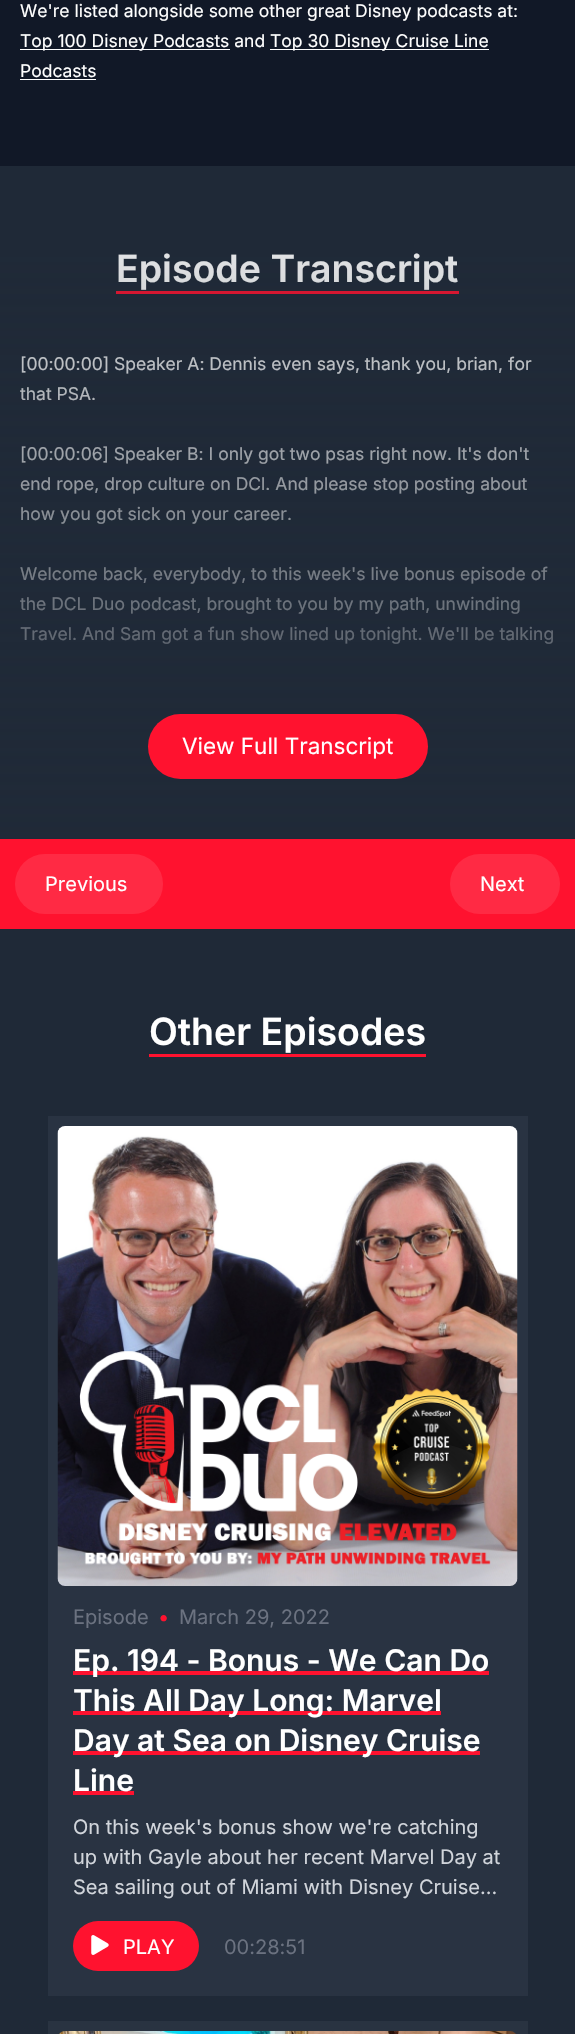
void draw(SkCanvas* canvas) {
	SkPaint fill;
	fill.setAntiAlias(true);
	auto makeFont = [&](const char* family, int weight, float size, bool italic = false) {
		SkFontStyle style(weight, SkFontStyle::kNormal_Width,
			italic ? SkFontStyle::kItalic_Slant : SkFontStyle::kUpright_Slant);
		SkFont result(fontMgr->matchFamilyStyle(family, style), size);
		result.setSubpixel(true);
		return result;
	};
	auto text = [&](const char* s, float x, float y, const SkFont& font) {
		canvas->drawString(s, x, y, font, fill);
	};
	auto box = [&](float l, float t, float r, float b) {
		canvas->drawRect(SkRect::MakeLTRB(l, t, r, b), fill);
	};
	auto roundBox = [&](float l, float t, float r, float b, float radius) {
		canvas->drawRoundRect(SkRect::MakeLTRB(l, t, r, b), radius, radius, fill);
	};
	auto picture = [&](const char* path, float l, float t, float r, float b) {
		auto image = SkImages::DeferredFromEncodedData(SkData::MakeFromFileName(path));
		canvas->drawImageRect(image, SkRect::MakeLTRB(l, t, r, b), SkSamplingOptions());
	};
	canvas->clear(0xFF111827);
	fill.setColor(0xFFFFFFFF);
	box(20, 49, 230, 50);
	box(270, 49, 489, 50);
	box(20, 79, 96, 80);
	fill.setColor(0xFF1F2937);
	box(0, 166, 575, 835);
	fill.setColor(0xFFFF122F);
	box(116, 291, 459, 294);
	box(0, 839, 575, 929);
	fill.setColor(0xFFFF2A44);
	roundBox(15, 854, 163, 914, 30);
	roundBox(450, 854, 560, 914, 30);
	fill.setColor(0xFF1F2937);
	box(0, 929, 575, 2034);
	fill.setColor(0xFFFF122F);
	box(149, 1054, 426, 1057);
	fill.setColor(0xFF293342);
	box(48, 1116, 528, 1996);
	picture("image0.png", 57, 1126, 518, 1586);
	fill.setColor(0xFFFF122F);
	box(73, 1671, 489, 1675);
	box(73, 1711, 441, 1715);
	box(73, 1751, 480, 1755);
	box(73, 1791, 134, 1795);
	roundBox(73, 1921, 199, 1971, 25);
	picture("image1.png", 91, 1935, 109, 1955);
	fill.setColor(0xFF293341);
	box(48, 2021, 528, 2034);
	picture("image2.png", 59, 2031, 516, 2034);
	auto font1 = makeFont("Inter", 400, 17.5f);
	fill.setColor(0xFFFFFFFF);
	text("We're listed alongside some other great Disney podcasts at:", 20, 17, font1);
	text("Top 100 Disney Podcasts and", 20, 47, font1);
	text("Top 30 Disney Cruise Line", 270, 47, font1);
	text("Podcasts", 20, 77, font1);
	auto font2 = makeFont("Inter", 600, 37.5f);
	text("Episode Transcript", 116, 282, font2);
	text("[00:00:00] Speaker A: Dennis even says, thank you, brian, for", 20, 370, font1);
	text("that PSA.", 20, 400, font1);
	text("[00:00:06] Speaker B: I only got two psas right now. It's don't", 20, 460, font1);
	text("end rope, drop culture on DCl. And please stop posting about", 20, 490, font1);
	text("how you got sick on your career.", 20, 520, font1);
	text("Welcome back, everybody, to this week's live bonus episode of", 20, 580, font1);
	text("the DCL Duo podcast, brought to you by my path, unwinding", 20, 610, font1);
	text("Travel. And Sam got a fun show lined up tonight. We'll be talking", 20, 640, font1);
	{
		const SkColor colors[] = {0xFF1F2937, 0x001F2937};
		const float stops[] = {0, 1};
		const SkPoint ends[] = {{288, 839}, {288, 166}};
		fill.setShader(SkGradientShader::MakeLinear(ends, colors, stops, 2, SkTileMode::kClamp));
		fill.setAlpha(255);
	}
	box(0, 253, 575, 839);
	fill.setShader(nullptr);
	fill.setColor(0xFFFF122F);
	roundBox(148, 714, 428, 779, 32.5f);
	auto font3 = makeFont("Inter", 400, 22.5f);
	fill.setColor(0xFFFFFFFF);
	text("View Full Transcript", 182, 754, font3);
	auto font4 = makeFont("Inter", 400, 20);
	text("Previous", 45, 891, font4);
	text("Next", 480, 891, font4);
	text("Other Episodes", 149, 1045, font2);
	fill.setColor(0xFF6B7280);
	text("Episode", 73, 1624, font4);
	fill.setColor(0xFFFF122F);
	text("•", 158, 1624, font4);
	fill.setColor(0xFF6B7280);
	text("March 29, 2022", 179, 1624, font4);
	auto font5 = makeFont("Inter", 600, 30);
	fill.setColor(0xFFFFFFFF);
	text("Ep. 194 - Bonus - We Can Do", 73, 1671, font5);
	text("This All Day Long: Marvel", 73, 1711, font5);
	text("Day at Sea on Disney Cruise", 73, 1751, font5);
	text("Line", 73, 1791, font5);
	fill.setColor(0xFFD1D5DB);
	text("On this week's bonus show we're catching", 73, 1834, font4);
	text("up with Gayle about her recent Marvel Day at", 73, 1864, font4);
	text("Sea sailing out of Miami with Disney Cruise...", 73, 1894, font4);
	fill.setColor(0xFFFFFFFF);
	text("PLAY", 123, 1954, font4);
	fill.setColor(0xFF6B7280);
	text("00:28:51", 224, 1954, font4);
}
